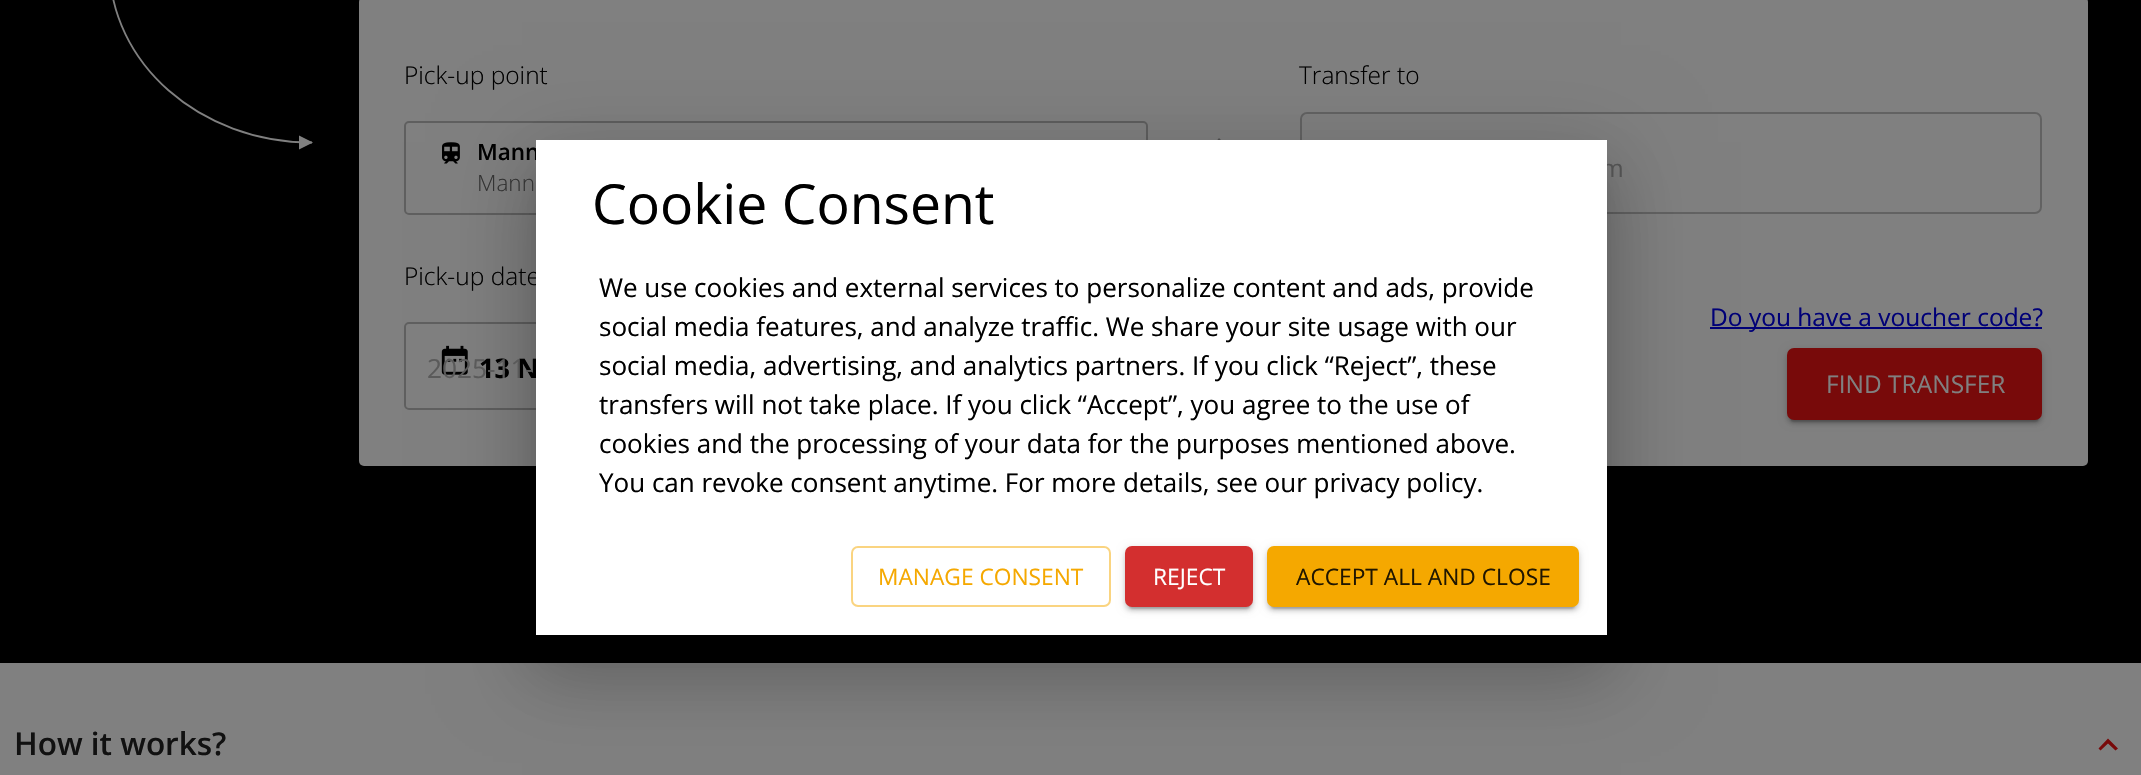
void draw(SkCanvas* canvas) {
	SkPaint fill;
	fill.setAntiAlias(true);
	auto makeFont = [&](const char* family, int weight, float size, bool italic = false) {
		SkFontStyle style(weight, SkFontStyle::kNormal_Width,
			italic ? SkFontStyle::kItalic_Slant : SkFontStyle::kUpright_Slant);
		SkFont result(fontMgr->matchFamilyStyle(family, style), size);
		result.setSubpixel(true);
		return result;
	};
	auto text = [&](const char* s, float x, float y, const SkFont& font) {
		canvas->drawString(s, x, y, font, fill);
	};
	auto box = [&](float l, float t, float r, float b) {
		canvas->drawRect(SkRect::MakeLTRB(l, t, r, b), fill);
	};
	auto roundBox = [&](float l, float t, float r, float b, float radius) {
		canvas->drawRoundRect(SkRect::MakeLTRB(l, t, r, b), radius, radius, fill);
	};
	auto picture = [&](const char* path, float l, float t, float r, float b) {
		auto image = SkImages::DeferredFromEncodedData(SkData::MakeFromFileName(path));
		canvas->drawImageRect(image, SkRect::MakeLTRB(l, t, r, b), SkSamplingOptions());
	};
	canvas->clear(0xFF808080);
	fill.setColor(0xFF000000);
	box(0, 0, 2141, 663);
	canvas->save();
	canvas->clipRect(SkRect::MakeLTRB(102, 0, 312, 151));
	fill.setStyle(SkPaint::kStroke_Style);
	fill.setStrokeWidth(1.8f);
	fill.setColor(0xFF808080);
	canvas->drawPath(SkPathBuilder().moveTo(311.5f, -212.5f).cubicTo(423, -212.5f, 513.5f, -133, 513.5f, -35).cubicTo(513.5f, 63, 423, 142.5f, 311.5f, 142.5f).cubicTo(200, 142.5f, 109.5f, 63, 109.5f, -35).cubicTo(109.5f, -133, 200, -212.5f, 311.5f, -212.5f).close().detach(), fill);
	canvas->restore();
	fill.setStyle(SkPaint::kFill_Style);
	canvas->drawPath(SkPathBuilder().moveTo(299, 149.5f).lineTo(299, 135.5f).lineTo(313, 142.5f).close().detach(), fill);
	roundBox(359, -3, 2088, 466, 5);
	fill.setStyle(SkPaint::kStroke_Style);
	fill.setStrokeWidth(2);
	fill.setColor(0xFF5F5F5F);
	canvas->drawRoundRect(SkRect::MakeLTRB(405, 122, 1147, 214), 4, 4, fill);
	picture("image0.png", 442, 142, 460, 164);
	fill.setStyle(SkPaint::kFill_Style);
	fill.setColor(0xFF4F4F4F);
	canvas->drawPath(SkPathBuilder().moveTo(1216.5f, 160).lineTo(1225.5f, 150.5f).lineTo(1216.5f, 141).lineTo(1219, 138).lineTo(1231.5f, 150.5f).lineTo(1219, 163).close().detach(), fill);
	fill.setStyle(SkPaint::kStroke_Style);
	fill.setColor(0xFF626262);
	canvas->drawRoundRect(SkRect::MakeLTRB(1301, 113, 2041, 213), 6, 6, fill);
	fill.setColor(0xFF5F5F5F);
	canvas->drawRoundRect(SkRect::MakeLTRB(405, 323, 767, 409), 4, 4, fill);
	picture("image1.png", 441, 345, 468, 375);
	fill.setStyle(SkPaint::kFill_Style);
	fill.setColor(0xFF000077);
	box(1710, 327, 2042, 329);
	fill.setColor(0x1F000000);
	fill.setMaskFilter(SkMaskFilter::MakeBlur(kNormal_SkBlurStyle, 4.5f));
	canvas->drawRoundRect(SkRect::MakeLTRB(1787, 350, 2042, 422), 7, 7, fill);
	fill.setMaskFilter(nullptr);
	fill.setColor(0x24000000);
	fill.setMaskFilter(SkMaskFilter::MakeBlur(kNormal_SkBlurStyle, 2));
	canvas->drawRoundRect(SkRect::MakeLTRB(1787, 352, 2042, 424), 7, 7, fill);
	fill.setMaskFilter(nullptr);
	fill.setColor(0x33000000);
	fill.setMaskFilter(SkMaskFilter::MakeBlur(kNormal_SkBlurStyle, 1));
	canvas->drawRoundRect(SkRect::MakeLTRB(1790, 357, 2039, 422), 4, 4, fill);
	fill.setMaskFilter(nullptr);
	fill.setColor(0xFF780A0A);
	roundBox(1787, 348, 2042, 420, 7);
	canvas->drawPath(SkPathBuilder().moveTo(2100.5f, 750.5f).lineTo(2108, 743.5f).lineTo(2115.5f, 750.5f).lineTo(2118, 748.5f).lineTo(2108, 738.5f).lineTo(2098.5f, 748.5f).close().detach(), fill);
	fill.setColor(0x1F000000);
	fill.setMaskFilter(SkMaskFilter::MakeBlur(kNormal_SkBlurStyle, 40));
	canvas->drawRect(SkRect::MakeLTRB(522, 142, 1621, 665), fill);
	fill.setMaskFilter(nullptr);
	fill.setColor(0x24000000);
	fill.setMaskFilter(SkMaskFilter::MakeBlur(kNormal_SkBlurStyle, 33));
	canvas->drawRect(SkRect::MakeLTRB(530, 177, 1612, 683), fill);
	fill.setMaskFilter(nullptr);
	fill.setColor(0x33000000);
	fill.setMaskFilter(SkMaskFilter::MakeBlur(kNormal_SkBlurStyle, 13));
	canvas->drawRect(SkRect::MakeLTRB(548, 172, 1594, 642), fill);
	fill.setMaskFilter(nullptr);
	auto font1 = makeFont("Open Sans", 300, 24.5f);
	fill.setColor(0xFF000000);
	text("Pick-up point", 404, 84, font1);
	auto font2 = makeFont("Open Sans", 600, 22.5f);
	text("Mann", 477, 160, font2);
	auto font3 = makeFont("Open Sans", 300, 22.5f);
	fill.setColor(0xFF333333);
	text("Mann", 477, 191, font3);
	fill.setColor(0xFF000000);
	text("Transfer to", 1299, 84, font1);
	auto font4 = makeFont("Open Sans", 400, 24.5f);
	fill.setColor(0xFF515151);
	text("m", 1601, 177, font4);
	fill.setColor(0xFF000000);
	text("Pick-up date", 404, 285, font1);
	auto font5 = makeFont("Open Sans", 700, 27);
	text("13 N", 479, 378, font5);
	auto font6 = makeFont("Open Sans", 400, 26.25f);
	fill.setColor(0xFF5A5A5A);
	text("2025-11-", 427, 378, font6);
	fill.setColor(0xFF000077);
	text("Do you have a voucher code?", 1710, 326, font4);
	fill.setColor(0xFF808080);
	text("FIND TRANSFER", 1826, 393, font4);
	auto font7 = makeFont("Open Sans", 600, 31.5f);
	fill.setColor(0xFF111111);
	text("How it works?", 14, 755, font7);
	fill.setColor(0xFFFFFFFF);
	box(536, 140, 1607, 635);
	auto font8 = makeFont("Open Sans", 400, 55.25f);
	fill.setColor(0xFF000000);
	text("Cookie Consent", 592, 224, font8);
	auto font9 = makeFont("Open Sans", 400, 26);
	text("We use cookies and external services to personalize content and ads, provide", 599, 297, font9);
	text("social media features, and analyze traffic. We share your site usage with our", 599, 336, font9);
	text("social media, advertising, and analytics partners. If you click “Reject”, these", 599, 375, font9);
	text("transfers will not take place. If you click “Accept”, you agree to the use of", 599, 414, font9);
	text("cookies and the processing of your data for the purposes mentioned above.", 599, 453, font9);
	text("You can revoke consent anytime. For more details, see our privacy policy.", 599, 492, font9);
	fill.setStyle(SkPaint::kStroke_Style);
	fill.setColor(0xFFFAD480);
	canvas->drawRoundRect(SkRect::MakeLTRB(852, 547, 1110, 606), 6, 6, fill);
	auto font10 = makeFont("Open Sans", 400, 22.75f);
	fill.setStyle(SkPaint::kFill_Style);
	fill.setColor(0xFFF5A800);
	text("MANAGE CONSENT", 878, 585, font10);
	fill.setColor(0x1F000000);
	fill.setMaskFilter(SkMaskFilter::MakeBlur(kNormal_SkBlurStyle, 4.5f));
	canvas->drawRoundRect(SkRect::MakeLTRB(1125, 548, 1253, 609), 7, 7, fill);
	fill.setMaskFilter(nullptr);
	fill.setColor(0x24000000);
	fill.setMaskFilter(SkMaskFilter::MakeBlur(kNormal_SkBlurStyle, 2));
	canvas->drawRoundRect(SkRect::MakeLTRB(1125, 550, 1253, 611), 7, 7, fill);
	fill.setMaskFilter(nullptr);
	fill.setColor(0x33000000);
	fill.setMaskFilter(SkMaskFilter::MakeBlur(kNormal_SkBlurStyle, 1));
	canvas->drawRoundRect(SkRect::MakeLTRB(1129, 555, 1250, 609), 4, 4, fill);
	fill.setMaskFilter(nullptr);
	fill.setColor(0xFFD32F2F);
	roundBox(1125, 546, 1253, 607, 7);
	fill.setColor(0xFFFFFFFF);
	text("REJECT", 1153, 585, font10);
	fill.setColor(0x1F000000);
	fill.setMaskFilter(SkMaskFilter::MakeBlur(kNormal_SkBlurStyle, 4.5f));
	canvas->drawRoundRect(SkRect::MakeLTRB(1267, 548, 1579, 609), 7, 7, fill);
	fill.setMaskFilter(nullptr);
	fill.setColor(0x24000000);
	fill.setMaskFilter(SkMaskFilter::MakeBlur(kNormal_SkBlurStyle, 2));
	canvas->drawRoundRect(SkRect::MakeLTRB(1267, 550, 1579, 611), 7, 7, fill);
	fill.setMaskFilter(nullptr);
	fill.setColor(0x33000000);
	fill.setMaskFilter(SkMaskFilter::MakeBlur(kNormal_SkBlurStyle, 1));
	canvas->drawRoundRect(SkRect::MakeLTRB(1271, 555, 1575, 609), 4, 4, fill);
	fill.setMaskFilter(nullptr);
	fill.setColor(0xFFF5A800);
	roundBox(1267, 546, 1579, 607, 7);
	fill.setColor(0xFF201600);
	text("ACCEPT ALL AND CLOSE", 1296, 585, font10);
}
